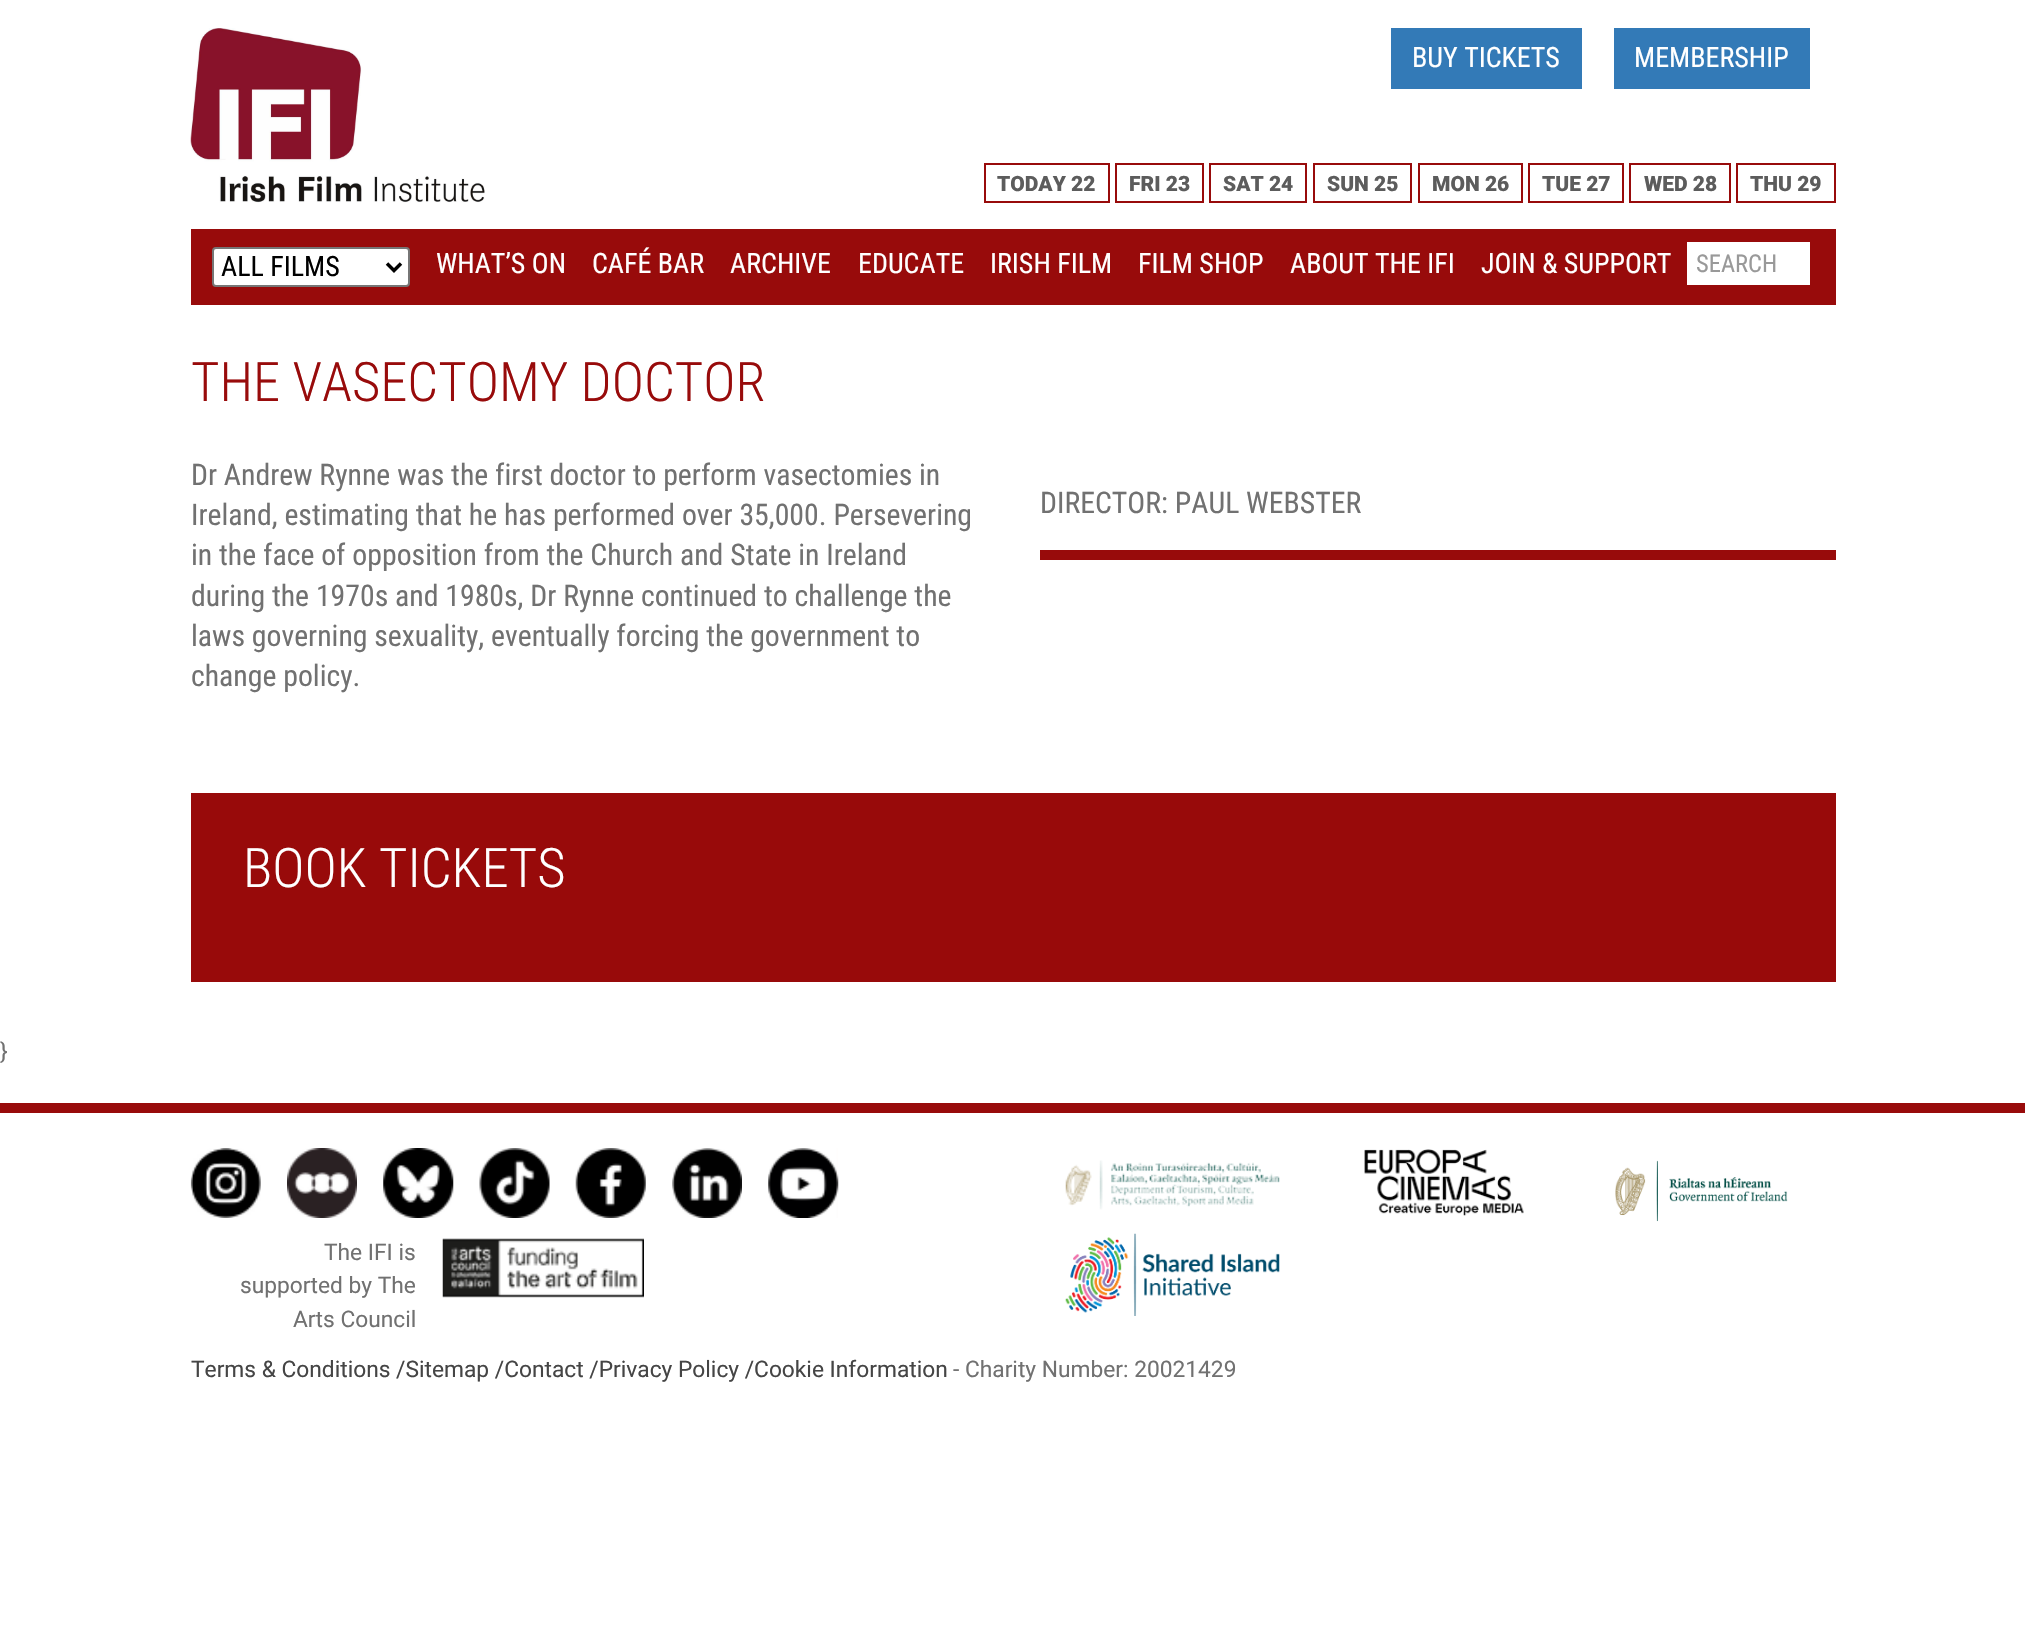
void draw(SkCanvas* canvas) {
	SkPaint fill;
	fill.setAntiAlias(true);
	auto makeFont = [&](const char* family, int weight, float size, bool italic = false) {
		SkFontStyle style(weight, SkFontStyle::kNormal_Width,
			italic ? SkFontStyle::kItalic_Slant : SkFontStyle::kUpright_Slant);
		SkFont result(fontMgr->matchFamilyStyle(family, style), size);
		result.setSubpixel(true);
		return result;
	};
	auto text = [&](const char* s, float x, float y, const SkFont& font) {
		canvas->drawString(s, x, y, font, fill);
	};
	auto box = [&](float l, float t, float r, float b) {
		canvas->drawRect(SkRect::MakeLTRB(l, t, r, b), fill);
	};
	auto picture = [&](const char* path, float l, float t, float r, float b) {
		auto image = SkImages::DeferredFromEncodedData(SkData::MakeFromFileName(path));
		canvas->drawImageRect(image, SkRect::MakeLTRB(l, t, r, b), SkSamplingOptions());
	};
	canvas->clear(0xFFFFFFFF);
	picture("image0.png", 190, 28, 485, 203);
	fill.setColor(0xFF337AB7);
	box(1391, 28, 1582, 89);
	box(1614, 28, 1810, 89);
	fill.setStyle(SkPaint::kStroke_Style);
	fill.setStrokeWidth(2);
	fill.setColor(0xFF980B0B);
	canvas->drawRect(SkRect::MakeLTRB(985, 164, 1109, 202), fill);
	canvas->drawRect(SkRect::MakeLTRB(1116, 164, 1203, 202), fill);
	canvas->drawRect(SkRect::MakeLTRB(1210, 164, 1306, 202), fill);
	canvas->drawRect(SkRect::MakeLTRB(1314, 164, 1411, 202), fill);
	canvas->drawRect(SkRect::MakeLTRB(1419, 164, 1522, 202), fill);
	canvas->drawRect(SkRect::MakeLTRB(1529, 164, 1623, 202), fill);
	canvas->drawRect(SkRect::MakeLTRB(1630, 164, 1730, 202), fill);
	canvas->drawRect(SkRect::MakeLTRB(1737, 164, 1835, 202), fill);
	fill.setStyle(SkPaint::kFill_Style);
	box(191, 229, 1836, 305);
	fill.setColor(0xFFFFFFFF);
	box(1687, 242, 1810, 285);
	canvas->drawRoundRect(SkRect::MakeLTRB(213, 248, 409, 286), 3, 3, fill);
	fill.setStyle(SkPaint::kStroke_Style);
	fill.setColor(0xFF767676);
	canvas->drawRoundRect(SkRect::MakeLTRB(213, 248, 409, 286), 3, 3, fill);
	fill.setStrokeWidth(3.5f);
	fill.setColor(0xFF000000);
	canvas->drawPath(SkPathBuilder().moveTo(387, 263.5f).lineTo(394, 270.5f).lineTo(401, 263.5f).detach(), fill);
	fill.setStyle(SkPaint::kFill_Style);
	fill.setColor(0xFF980B0B);
	box(1040, 550, 1836, 560);
	fill.setColor(0xFF980A0A);
	box(191, 793, 1836, 982);
	fill.setColor(0xFF980B0B);
	box(0, 1103, 2025, 1113);
	picture("image1.png", 190, 1148, 261, 1218);
	picture("image2.png", 287, 1148, 357, 1218);
	picture("image3.png", 383, 1148, 454, 1218);
	picture("image4.png", 479, 1148, 550, 1218);
	picture("image5.png", 575, 1148, 646, 1218);
	picture("image6.png", 672, 1148, 742, 1218);
	picture("image7.png", 768, 1148, 839, 1218);
	picture("image8.png", 442, 1238, 644, 1298);
	picture("image9.png", 1065, 1160, 1280, 1210);
	picture("image10.png", 1364, 1149, 1524, 1216);
	picture("image11.png", 1615, 1160, 1788, 1222);
	picture("image12.png", 1065, 1233, 1280, 1316);
	auto font1 = makeFont("Roboto Condensed", 400, 28);
	fill.setColor(0xFFFFFFFF);
	text("BUY TICKETS", 1412, 67, font1);
	text("MEMBERSHIP", 1634, 67, font1);
	auto font2 = makeFont("Roboto", 900, 21);
	fill.setColor(0xFF5C5C5C);
	text("TODAY 22", 997, 191, font2);
	text("FRI 23", 1129, 191, font2);
	text("SAT 24", 1223, 191, font2);
	text("SUN 25", 1327, 191, font2);
	text("MON 26", 1432, 191, font2);
	text("TUE 27", 1542, 191, font2);
	text("WED 28", 1644, 191, font2);
	text("THU 29", 1750, 191, font2);
	auto font3 = makeFont("Roboto Condensed", 400, 24.5f);
	fill.setColor(0xFF999999);
	text("SEARCH", 1696, 272, font3);
	fill.setColor(0xFF000000);
	text("ALL FILMS", 221, 276, font1);
	fill.setColor(0xFFFFFFFF);
	text("WHAT’S ON", 436, 273, font1);
	text("CAFÉ BAR", 592, 273, font1);
	text("ARCHIVE", 730, 273, font1);
	text("EDUCATE", 858, 273, font1);
	text("IRISH FILM", 990, 273, font1);
	text("FILM SHOP", 1138, 273, font1);
	text("ABOUT THE IFI", 1290, 273, font1);
	text("JOIN & SUPPORT", 1481, 273, font1);
	auto font4 = makeFont("Roboto Condensed", 300, 54.6f);
	fill.setColor(0xFF980B0B);
	text("THE VASECTOMY DOCTOR", 191, 401, font4);
	auto font5 = makeFont("Roboto Condensed", 400, 29.75f);
	fill.setColor(0xFF717171);
	text("Dr Andrew Rynne was the first doctor to perform vasectomies in", 191, 485, font5);
	text("Ireland, estimating that he has performed over 35,000. Persevering", 191, 525, font5);
	text("in the face of opposition from the Church and State in Ireland", 191, 565, font5);
	text("during the 1970s and 1980s, Dr Rynne continued to challenge the", 191, 606, font5);
	text("laws governing sexuality, eventually forcing the government to", 191, 646, font5);
	text("change policy.", 191, 686, font5);
	text("DIRECTOR: PAUL WEBSTER", 1040, 513, font5);
	fill.setColor(0xFFFFFFFF);
	text("BOOK TICKETS", 243, 887, font4);
	auto font6 = makeFont("Roboto", 400, 22.75f);
	fill.setColor(0xFF717171);
	text("}", 0, 1059, font6);
	text("The IFI is", 324, 1260, font6);
	text("supported by The", 240, 1293, font6);
	text("Arts Council", 293, 1327, font6);
	fill.setColor(0xFF454545);
	text("Terms & Conditions /Sitemap /Contact /Privacy Policy /Cookie Information", 191, 1377, font6);
	fill.setColor(0xFF717171);
	text("- Charity Number: 20021429", 953, 1377, font6);
}
